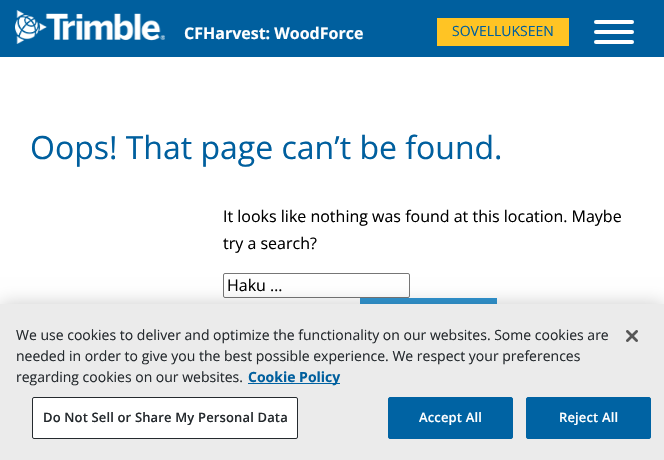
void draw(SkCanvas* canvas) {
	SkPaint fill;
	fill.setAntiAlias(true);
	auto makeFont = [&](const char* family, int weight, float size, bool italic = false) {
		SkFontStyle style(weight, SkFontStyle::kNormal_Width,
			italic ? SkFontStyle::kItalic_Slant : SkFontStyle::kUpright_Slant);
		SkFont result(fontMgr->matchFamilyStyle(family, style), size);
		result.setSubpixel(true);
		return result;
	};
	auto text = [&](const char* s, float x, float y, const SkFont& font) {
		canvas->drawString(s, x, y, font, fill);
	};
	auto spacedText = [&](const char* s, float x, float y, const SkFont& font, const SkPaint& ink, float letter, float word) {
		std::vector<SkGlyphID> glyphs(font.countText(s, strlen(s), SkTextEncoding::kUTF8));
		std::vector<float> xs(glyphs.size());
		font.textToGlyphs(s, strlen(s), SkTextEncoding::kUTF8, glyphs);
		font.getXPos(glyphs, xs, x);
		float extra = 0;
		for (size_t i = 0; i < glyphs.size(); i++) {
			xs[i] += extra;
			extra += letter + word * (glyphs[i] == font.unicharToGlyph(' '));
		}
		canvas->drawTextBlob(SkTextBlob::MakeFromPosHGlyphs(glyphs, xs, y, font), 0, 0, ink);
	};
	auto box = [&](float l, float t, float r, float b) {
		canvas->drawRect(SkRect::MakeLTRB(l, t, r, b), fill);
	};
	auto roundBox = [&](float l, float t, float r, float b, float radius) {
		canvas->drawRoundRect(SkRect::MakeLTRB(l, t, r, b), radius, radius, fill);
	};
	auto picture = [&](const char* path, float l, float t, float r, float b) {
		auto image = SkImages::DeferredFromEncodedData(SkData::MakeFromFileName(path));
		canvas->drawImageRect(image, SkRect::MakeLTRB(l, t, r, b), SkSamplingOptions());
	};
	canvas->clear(0xFFFFFFFF);
	fill.setColor(0xFF005F9E);
	box(0, 0, 664, 57);
	fill.setColor(0xFFFFFFFF);
	roundBox(594, 20, 634, 24, 2);
	roundBox(594, 30, 634, 34, 2);
	roundBox(594, 40, 634, 44, 2);
	picture("image0.png", 15, 10, 165, 44);
	fill.setColor(0xFFFFC424);
	box(437, 18, 569, 46);
	fill.setStyle(SkPaint::kStroke_Style);
	fill.setStrokeWidth(1);
	fill.setColor(0xFF767676);
	canvas->drawRoundRect(SkRect::MakeLTRB(223.5f, 273.5f, 409.5f, 297.5f), 1.5f, 1.5f, fill);
	fill.setStyle(SkPaint::kFill_Style);
	fill.setColor(0xFF3195D1);
	box(360, 298, 497, 304);
	fill.setColor(0x33000000);
	fill.setMaskFilter(SkMaskFilter::MakeBlur(kNormal_SkBlurStyle, 9));
	canvas->drawRect(SkRect::MakeLTRB(0, 304, 664, 460), fill);
	fill.setMaskFilter(nullptr);
	fill.setColor(0xFFEBEBEB);
	box(0, 304, 664, 460);
	fill.setColor(0xFF0063A3);
	box(248, 383, 340, 384);
	fill.setColor(0xFFFFFFFF);
	canvas->drawRoundRect(SkRect::MakeLTRB(32.5f, 397.5f, 297.5f, 438.5f), 1.5f, 1.5f, fill);
	fill.setStyle(SkPaint::kStroke_Style);
	fill.setColor(0xFF252A2E);
	canvas->drawRoundRect(SkRect::MakeLTRB(32.5f, 397.5f, 297.5f, 438.5f), 1.5f, 1.5f, fill);
	fill.setStyle(SkPaint::kFill_Style);
	fill.setColor(0xFF0063A3);
	canvas->drawRoundRect(SkRect::MakeLTRB(388.5f, 397.5f, 512.5f, 438.5f), 1.5f, 1.5f, fill);
	fill.setStyle(SkPaint::kStroke_Style);
	canvas->drawRoundRect(SkRect::MakeLTRB(388.5f, 397.5f, 512.5f, 438.5f), 1.5f, 1.5f, fill);
	fill.setStyle(SkPaint::kFill_Style);
	canvas->drawRoundRect(SkRect::MakeLTRB(526.5f, 397.5f, 650.5f, 438.5f), 1.5f, 1.5f, fill);
	fill.setStyle(SkPaint::kStroke_Style);
	canvas->drawRoundRect(SkRect::MakeLTRB(526.5f, 397.5f, 650.5f, 438.5f), 1.5f, 1.5f, fill);
	picture("image1.png", 626, 330, 638, 342);
	auto font1 = makeFont("Open Sans", 700, 16);
	fill.setStyle(SkPaint::kFill_Style);
	fill.setColor(0xFFFFFFFF);
	text("CFHarvest: WoodForce", 184, 39, font1);
	auto font2 = makeFont("Open Sans", 400, 14);
	fill.setColor(0xFF005F9E);
	text("SOVELLUKSEEN", 452, 36, font2);
	auto font3 = makeFont("Open Sans", 400, 32);
	text("Oops! That page can’t be found.", 30, 159, font3);
	auto font4 = makeFont("Open Sans", 400, 16);
	fill.setColor(0xFF000000);
	text("It looks like nothing was found at this location. Maybe", 223, 222, font4);
	text("try a search?", 223, 249, font4);
	text("Haku …", 227, 291, font4);
	fill.setColor(0xFF252A2E);
	text("We use cookies to deliver and optimize the functionality on our websites. Some cookies are", 16, 340, font2);
	text("needed in order to give you the best possible experience. We respect your preferences", 16, 361, font2);
	text("regarding cookies on our websites.", 16, 382, font2);
	auto font5 = makeFont("Open Sans", 700, 14);
	fill.setColor(0xFF005F9E);
	text("Cookie Policy", 248, 382, font5);
	auto font6 = makeFont("Open Sans", 600, 13);
	fill.setColor(0xFF252A2E);
	spacedText("Do Not Sell or Share My Personal Data", 43, 422, font6, fill, 0.15f, 0);
	fill.setColor(0xFFFFFFFF);
	spacedText("Accept All", 419, 422, font6, fill, 0.15f, 0);
	spacedText("Reject All", 559, 422, font6, fill, 0.15f, 0);
}
